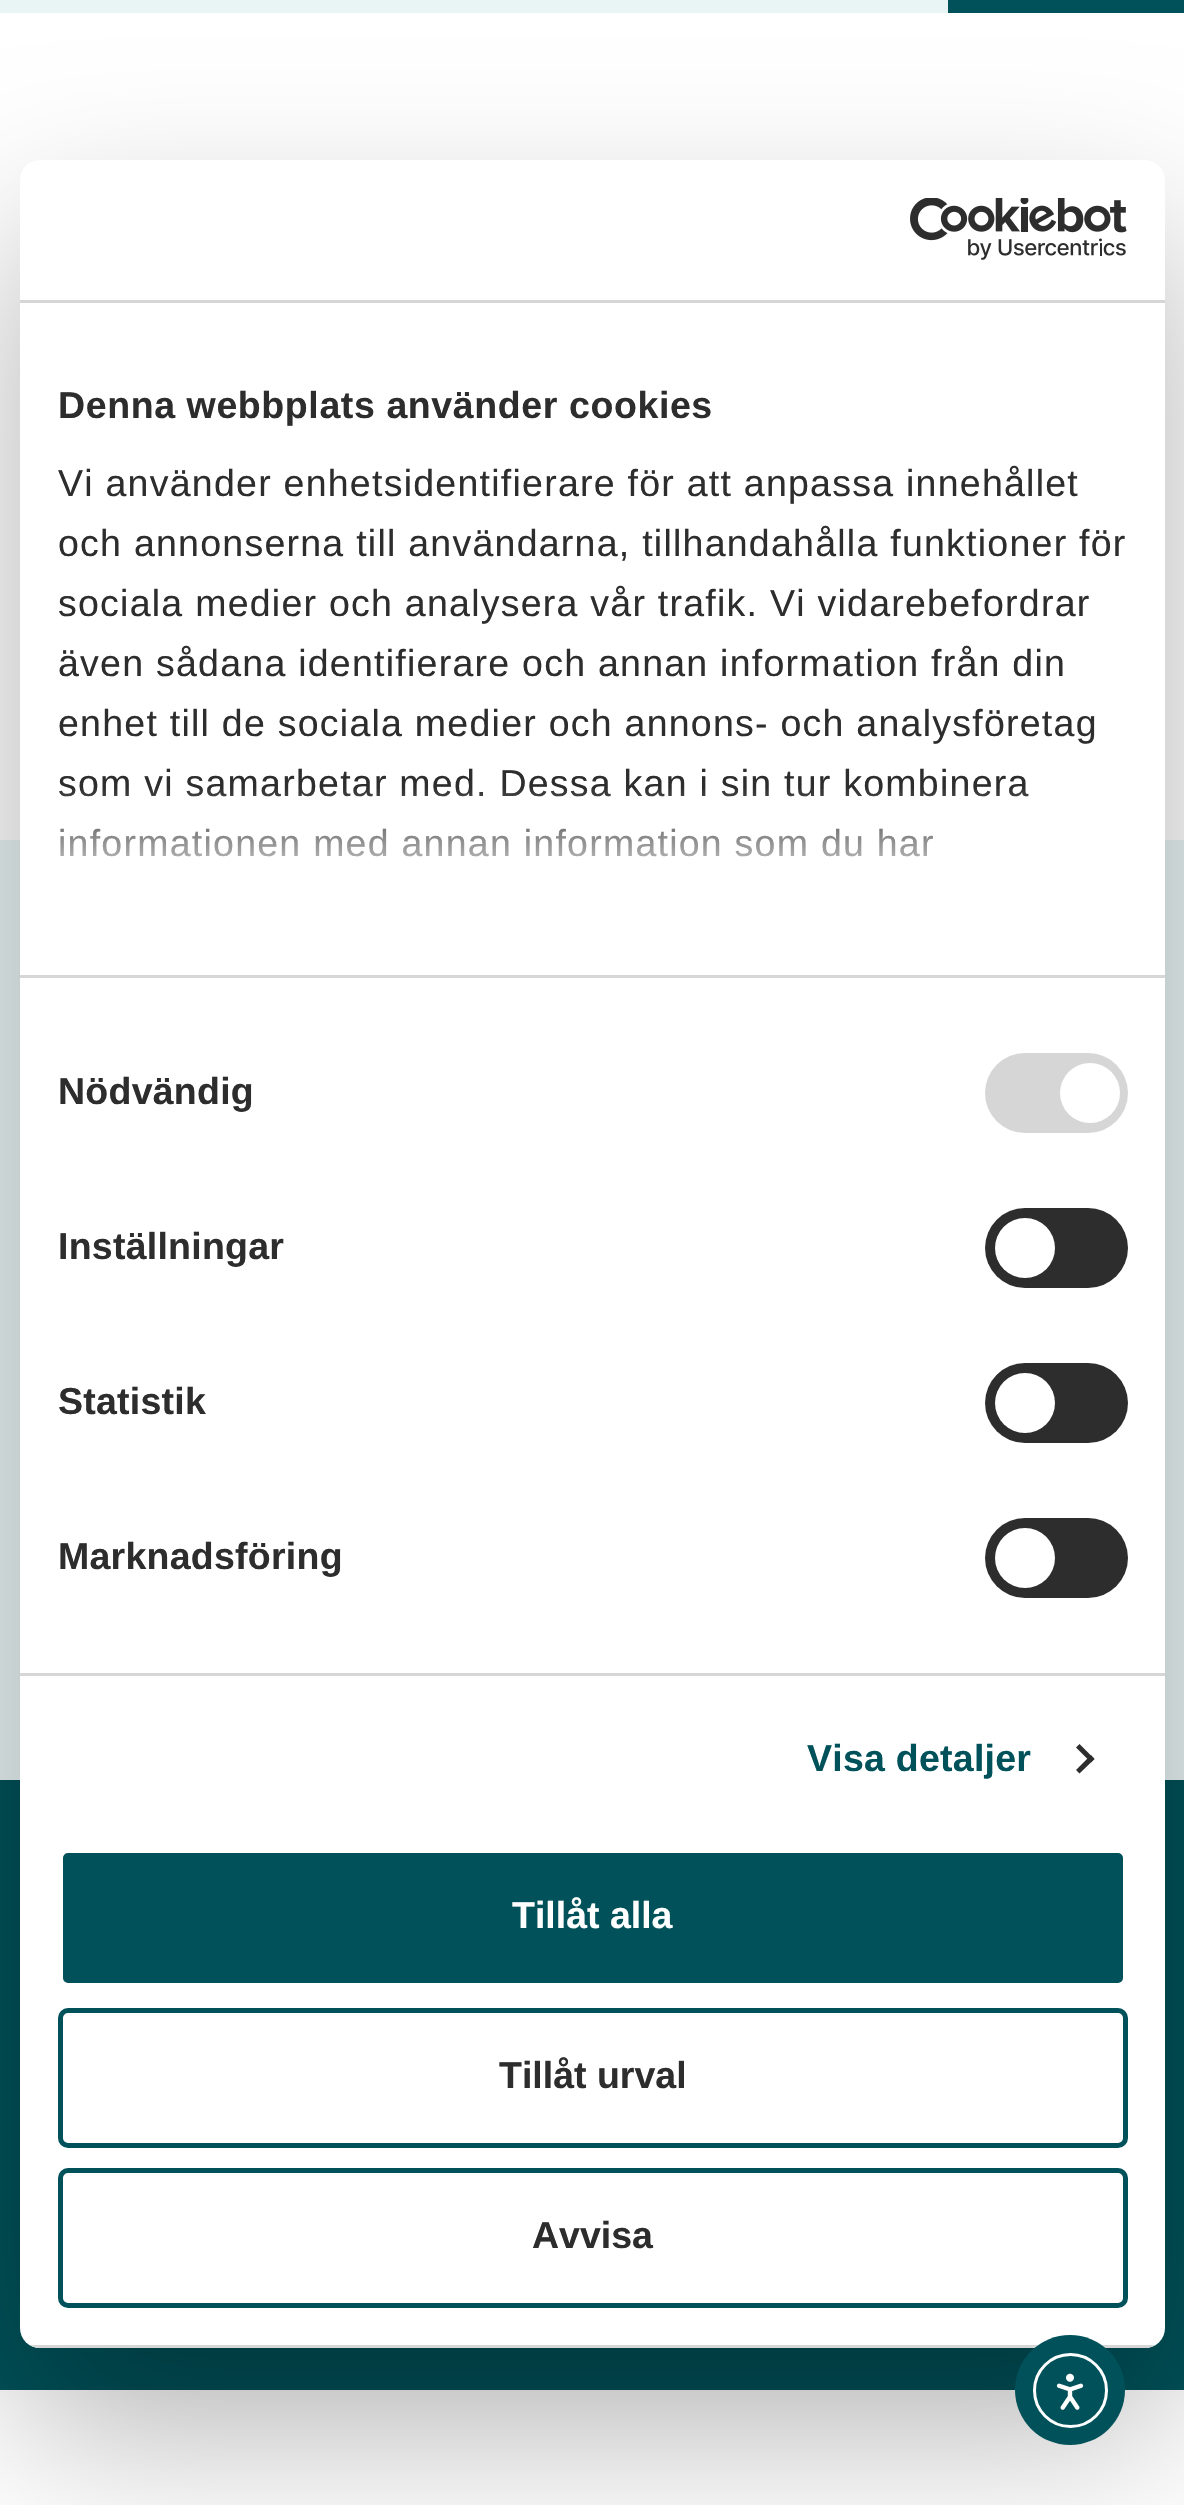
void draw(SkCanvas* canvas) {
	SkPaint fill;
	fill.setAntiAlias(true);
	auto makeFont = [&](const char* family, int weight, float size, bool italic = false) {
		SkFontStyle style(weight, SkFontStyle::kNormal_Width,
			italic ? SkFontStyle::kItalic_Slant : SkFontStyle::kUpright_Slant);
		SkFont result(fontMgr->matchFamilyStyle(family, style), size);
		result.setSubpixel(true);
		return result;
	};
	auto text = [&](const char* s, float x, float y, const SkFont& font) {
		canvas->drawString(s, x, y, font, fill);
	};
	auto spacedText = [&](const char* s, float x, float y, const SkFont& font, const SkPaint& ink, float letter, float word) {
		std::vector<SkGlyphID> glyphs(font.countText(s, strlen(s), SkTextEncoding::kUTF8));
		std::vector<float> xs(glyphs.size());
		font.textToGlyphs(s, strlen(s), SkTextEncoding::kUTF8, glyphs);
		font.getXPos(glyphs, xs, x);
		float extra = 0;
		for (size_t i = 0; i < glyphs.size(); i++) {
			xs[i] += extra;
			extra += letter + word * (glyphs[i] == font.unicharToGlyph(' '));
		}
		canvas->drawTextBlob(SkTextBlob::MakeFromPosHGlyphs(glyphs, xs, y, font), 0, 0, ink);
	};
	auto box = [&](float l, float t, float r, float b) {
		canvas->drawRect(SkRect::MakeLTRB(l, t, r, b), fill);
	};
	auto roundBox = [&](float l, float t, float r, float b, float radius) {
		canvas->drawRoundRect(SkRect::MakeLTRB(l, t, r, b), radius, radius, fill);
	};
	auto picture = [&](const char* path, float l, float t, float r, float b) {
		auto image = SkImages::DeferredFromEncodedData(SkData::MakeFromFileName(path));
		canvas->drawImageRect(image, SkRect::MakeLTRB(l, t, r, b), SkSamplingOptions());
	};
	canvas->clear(0xFFFFFFFF);
	fill.setColor(0xFFE9F4F4);
	box(0, 0, 948, 13);
	fill.setColor(0xFF005159);
	box(948, 0, 1184, 13);
	fill.setColor(0xFFE9F4F4);
	box(0, 840, 1184, 1780);
	fill.setColor(0xFF005159);
	box(0, 1780, 1184, 2390);
	fill.setColor(0x4D000000);
	fill.setMaskFilter(SkMaskFilter::MakeBlur(kNormal_SkBlurStyle, 85));
	canvas->drawRoundRect(SkRect::MakeLTRB(20, 240, 1165, 2428), 20, 20, fill);
	fill.setMaskFilter(nullptr);
	fill.setColor(0xFFFFFFFF);
	roundBox(20, 160, 1165, 2348, 20);
	fill.setColor(0xFFD6D6D6);
	box(20, 300, 1165, 303);
	picture("image0.png", 910, 198, 1127, 260);
	box(20, 975, 1165, 978);
	box(20, 1673, 1165, 1676);
	roundBox(985, 1053, 1128, 1133, 40);
	fill.setColor(0xFFFFFFFF);
	canvas->drawCircle(1090, 1093, 30, fill);
	fill.setColor(0xFF2D2D2D);
	roundBox(985, 1208, 1128, 1288, 40);
	fill.setColor(0xFFFFFFFF);
	canvas->drawCircle(1025, 1248, 30, fill);
	fill.setColor(0xFF2D2D2D);
	roundBox(985, 1363, 1128, 1443, 40);
	fill.setColor(0xFFFFFFFF);
	canvas->drawCircle(1025, 1403, 30, fill);
	fill.setColor(0xFF2D2D2D);
	roundBox(985, 1518, 1128, 1598, 40);
	fill.setColor(0xFFFFFFFF);
	canvas->drawCircle(1025, 1558, 30, fill);
	fill.setColor(0xFF2D2D2D);
	canvas->drawPath(SkPathBuilder().moveTo(1079.5f, 1744).lineTo(1094.5f, 1759).lineTo(1091, 1762.5f).lineTo(1076, 1747.5f).close().detach(), fill);
	canvas->drawPath(SkPathBuilder().moveTo(1091, 1755).lineTo(1094.5f, 1759).lineTo(1079.5f, 1773.5f).lineTo(1076, 1770).close().detach(), fill);
	canvas->save();
	canvas->clipPath(SkPathBuilder().moveTo(40, 160).lineTo(1145, 160).cubicTo(1156, 160, 1165, 169, 1165, 180).lineTo(1165, 2328).cubicTo(1165, 2339, 1156, 2348, 1145, 2348).lineTo(40, 2348).cubicTo(29, 2348, 20, 2339, 20, 2328).lineTo(20, 180).cubicTo(20, 169, 29, 160, 40, 160).close().detach(), true);
	fill.setColor(0xFFD6D6D6);
	box(29, 2345, 1156, 2348);
	canvas->restore();
	fill.setColor(0xFF005159);
	canvas->drawRoundRect(SkRect::MakeLTRB(60.5f, 1850.5f, 1125.5f, 1985.5f), 7.5f, 7.5f, fill);
	fill.setStyle(SkPaint::kStroke_Style);
	fill.setStrokeWidth(5);
	fill.setColor(0xFFFFFFFF);
	canvas->drawRoundRect(SkRect::MakeLTRB(60.5f, 1850.5f, 1125.5f, 1985.5f), 7.5f, 7.5f, fill);
	fill.setColor(0xFF005159);
	canvas->drawRoundRect(SkRect::MakeLTRB(60.5f, 2010.5f, 1125.5f, 2145.5f), 7.5f, 7.5f, fill);
	canvas->drawRoundRect(SkRect::MakeLTRB(60.5f, 2170.5f, 1125.5f, 2305.5f), 7.5f, 7.5f, fill);
	fill.setStyle(SkPaint::kFill_Style);
	canvas->drawCircle(1070, 2390, 55, fill);
	fill.setStyle(SkPaint::kStroke_Style);
	fill.setStrokeWidth(3);
	fill.setColor(0xFFFFFFFF);
	canvas->drawCircle(1070.5f, 2390.5f, 36, fill);
	picture("image1.png", 1056, 2373, 1084, 2410);
	auto font1 = makeFont("Liberation Sans", 700, 37.5f);
	fill.setStyle(SkPaint::kFill_Style);
	fill.setColor(0xFF2D2D2D);
	spacedText("Denna webbplats använder cookies", 58, 418, font1, fill, 0.6f, 0);
	auto font2 = makeFont("Liberation Sans", 400, 37.5f);
	spacedText("Vi använder enhetsidentifierare för att anpassa innehållet", 58, 496, font2, fill, 1.25f, 0);
	spacedText("och annonserna till användarna, tillhandahålla funktioner för", 58, 556, font2, fill, 1.25f, 0);
	spacedText("sociala medier och analysera vår trafik. Vi vidarebefordrar", 58, 616, font2, fill, 1.25f, 0);
	spacedText("även sådana identifierare och annan information från din", 58, 676, font2, fill, 1.25f, 0);
	spacedText("enhet till de sociala medier och annons- och analysföretag", 58, 736, font2, fill, 1.25f, 0);
	spacedText("som vi samarbetar med. Dessa kan i sin tur kombinera", 58, 796, font2, fill, 1.25f, 0);
	spacedText("informationen med annan information som du har", 58, 856, font2, fill, 1.25f, 0);
	{
		const SkColor colors[] = {0xFFFFFFFF, 0xCCFFFFFF, 0x00FFFFFF};
		const float stops[] = {0, 0.5f, 1};
		const SkPoint ends[] = {{576, 974}, {576, 786}};
		fill.setShader(SkGradientShader::MakeLinear(ends, colors, stops, 3, SkTileMode::kClamp));
		fill.setAlpha(255);
	}
	box(59, 789, 1028, 857);
	fill.setShader(nullptr);
	fill.setColor(0xFF2D2D2D);
	spacedText("Nödvändig", 58, 1104, font1, fill, 0.25f, 0);
	spacedText("Inställningar", 58, 1259, font1, fill, 0.25f, 0);
	spacedText("Statistik", 58, 1414, font1, fill, 0.25f, 0);
	spacedText("Marknadsföring", 58, 1569, font1, fill, 0.25f, 0);
	fill.setColor(0xFF005159);
	spacedText("Visa detaljer", 807, 1771, font1, fill, 0.25f, 0);
	fill.setColor(0xFFFFFFFF);
	text("Tillåt alla", 512, 1928, font1);
	fill.setColor(0xFF2D2D2D);
	text("Tillåt urval", 499, 2088, font1);
	text("Avvisa", 532, 2248, font1);
}
